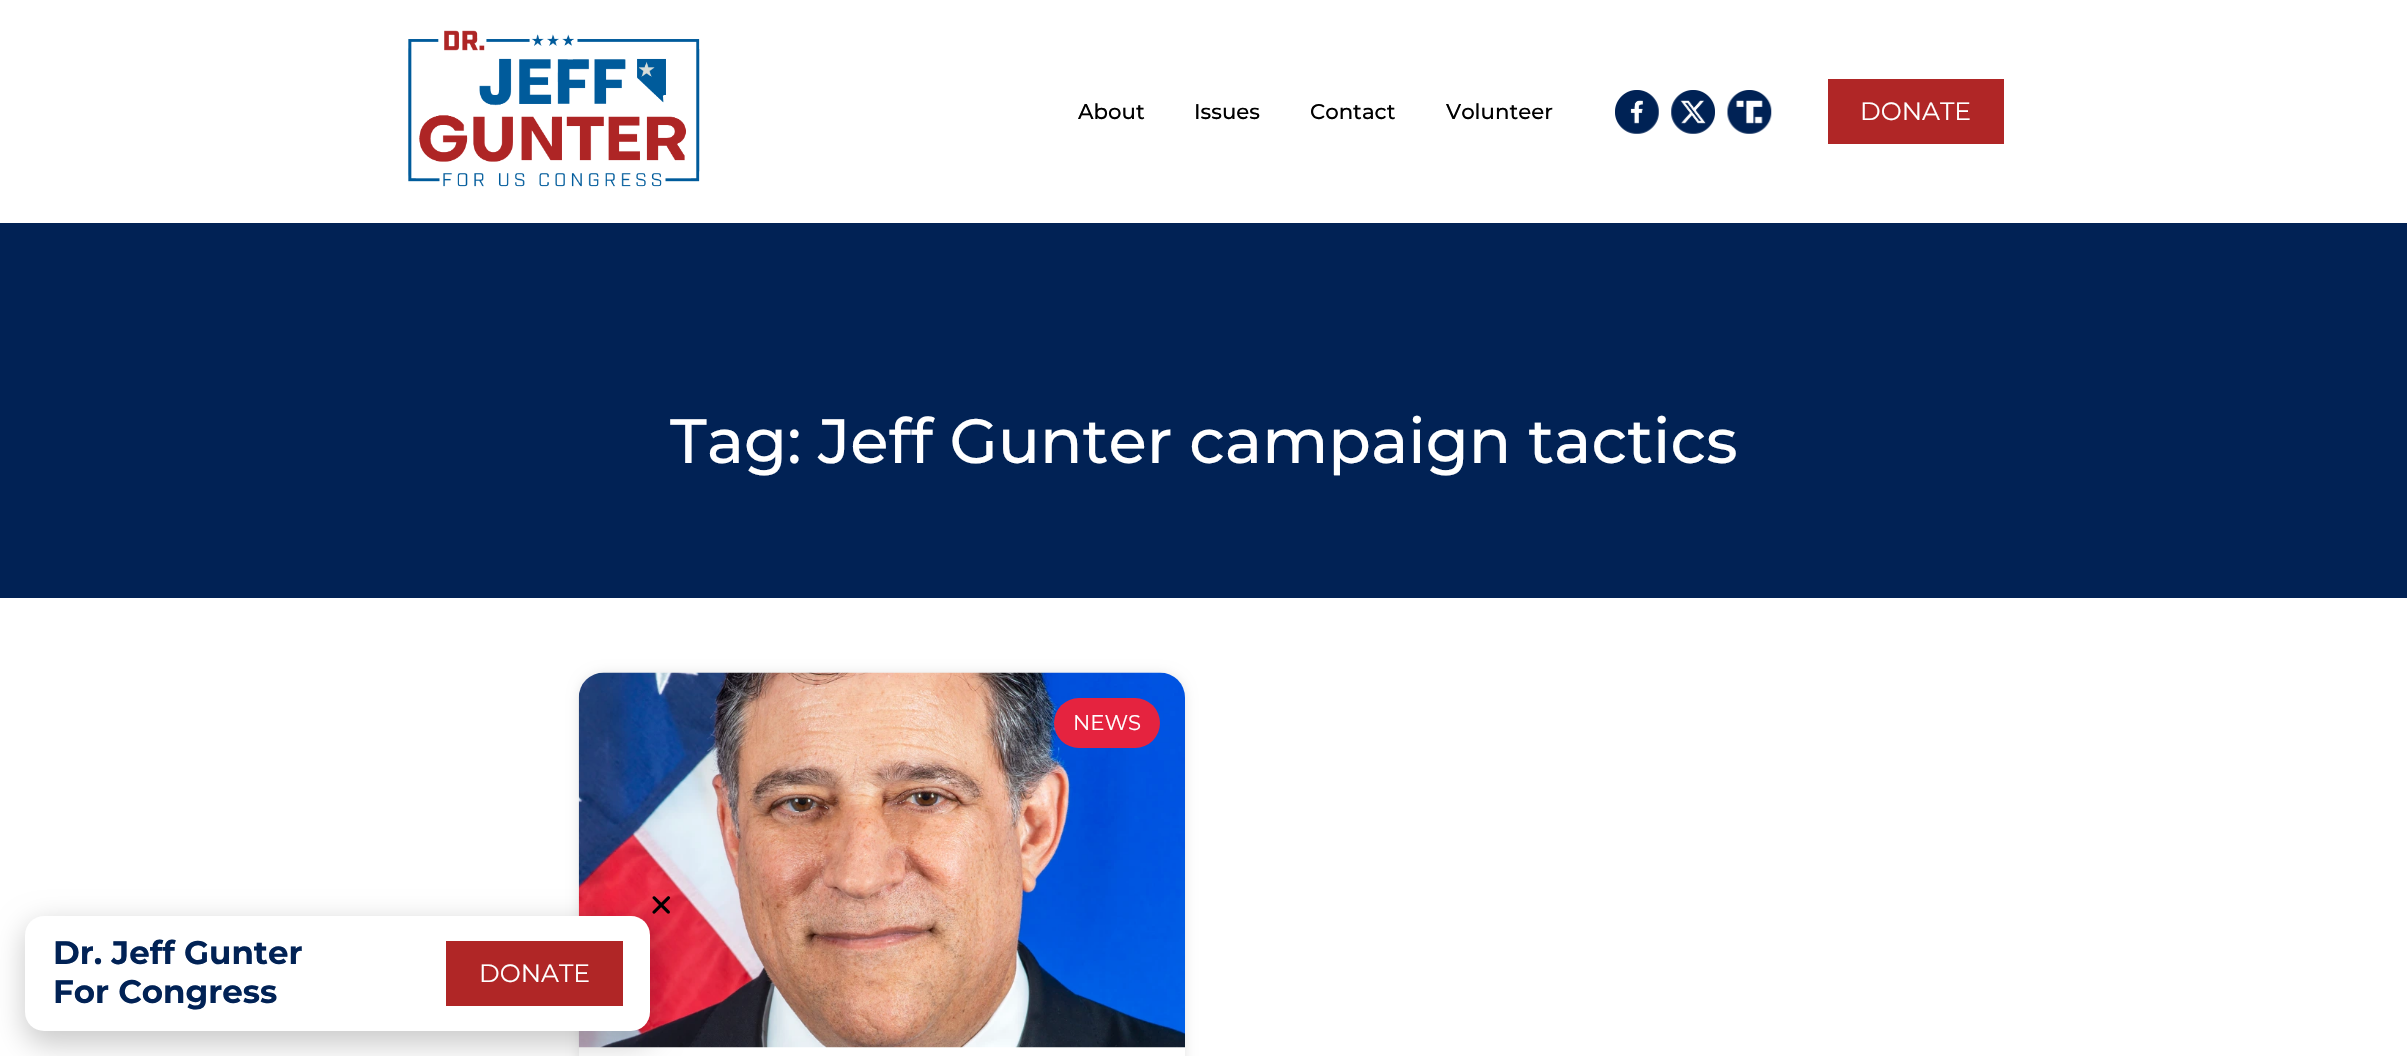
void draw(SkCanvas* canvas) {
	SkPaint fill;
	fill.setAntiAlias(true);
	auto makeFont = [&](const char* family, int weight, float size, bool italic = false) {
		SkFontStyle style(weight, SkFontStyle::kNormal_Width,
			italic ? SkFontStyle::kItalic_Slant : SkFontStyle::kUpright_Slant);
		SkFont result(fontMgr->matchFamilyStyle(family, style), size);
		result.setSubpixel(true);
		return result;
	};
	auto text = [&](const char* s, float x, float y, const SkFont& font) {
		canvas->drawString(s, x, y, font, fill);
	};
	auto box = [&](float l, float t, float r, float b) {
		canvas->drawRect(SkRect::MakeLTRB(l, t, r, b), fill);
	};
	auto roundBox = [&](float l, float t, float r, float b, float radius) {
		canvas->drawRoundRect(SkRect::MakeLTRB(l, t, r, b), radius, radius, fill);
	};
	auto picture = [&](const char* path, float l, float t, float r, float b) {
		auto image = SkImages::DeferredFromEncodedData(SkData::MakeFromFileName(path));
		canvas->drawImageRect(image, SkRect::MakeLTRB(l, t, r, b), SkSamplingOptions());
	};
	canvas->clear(0xFFFFFFFF);
	picture("image0.png", 408, 30, 700, 187);
	picture("image1.png", 1615, 90, 1659, 134);
	picture("image2.png", 1671, 90, 1715, 134);
	picture("image3.png", 1727, 90, 1772, 134);
	fill.setColor(0xFFB02626);
	box(1828, 79, 2004, 144);
	fill.setColor(0xFF012255);
	box(0, 223, 2407, 598);
	canvas->save();
	canvas->clipPath(SkPathBuilder(SkPathFillType::kEvenOdd).moveTo(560, 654).lineTo(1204, 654).lineTo(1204, 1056).lineTo(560, 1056).close().moveTo(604, 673).lineTo(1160, 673).cubicTo(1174, 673, 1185, 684, 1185, 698).lineTo(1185, 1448).cubicTo(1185, 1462, 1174, 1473, 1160, 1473).lineTo(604, 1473).cubicTo(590, 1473, 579, 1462, 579, 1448).lineTo(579, 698).cubicTo(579, 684, 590, 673, 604, 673).close().detach(), true);
	fill.setColor(0x1A000000);
	fill.setMaskFilter(SkMaskFilter::MakeBlur(kNormal_SkBlurStyle, 6));
	canvas->drawRoundRect(SkRect::MakeLTRB(579, 673, 1185, 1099), 25, 25, fill);
	fill.setMaskFilter(nullptr);
	canvas->restore();
	picture("image4.png", 578, 672, 1185, 1048);
	fill.setColor(0xFFE5233F);
	roundBox(1054, 698, 1160, 748, 25);
	fill.setColor(0x33000000);
	fill.setMaskFilter(SkMaskFilter::MakeBlur(kNormal_SkBlurStyle, 14.5f));
	canvas->drawRoundRect(SkRect::MakeLTRB(24, 923, 656, 1045), 23, 23, fill);
	fill.setMaskFilter(nullptr);
	fill.setColor(0xFFFFFFFF);
	roundBox(25, 916, 650, 1031, 19);
	picture("image5.png", 652, 896, 671, 914);
	fill.setColor(0xFFB02626);
	box(446, 941, 623, 1006);
	auto font1 = makeFont("Montserrat", 500, 21.25f);
	fill.setColor(0xFF000000);
	text("About", 1078, 119, font1);
	text("Issues", 1194, 119, font1);
	text("Contact", 1310, 119, font1);
	text("Volunteer", 1446, 119, font1);
	auto font2 = makeFont("Montserrat", 400, 25);
	fill.setColor(0xFFFFFFFF);
	text("DONATE", 1860, 120, font2);
	auto font3 = makeFont("Montserrat", 500, 62.5f);
	text("Tag: Jeff Gunter campaign tactics", 670, 463, font3);
	auto font4 = makeFont("Montserrat", 400, 21.25f);
	text("NEWS", 1073, 730, font4);
	auto font5 = makeFont("Montserrat", 700, 32.5f);
	fill.setColor(0xFF012255);
	text("Dr. Jeff Gunter", 53, 964, font5);
	text("For Congress", 53, 1003, font5);
	fill.setColor(0xFFFFFFFF);
	text("DONATE", 479, 982, font2);
}
